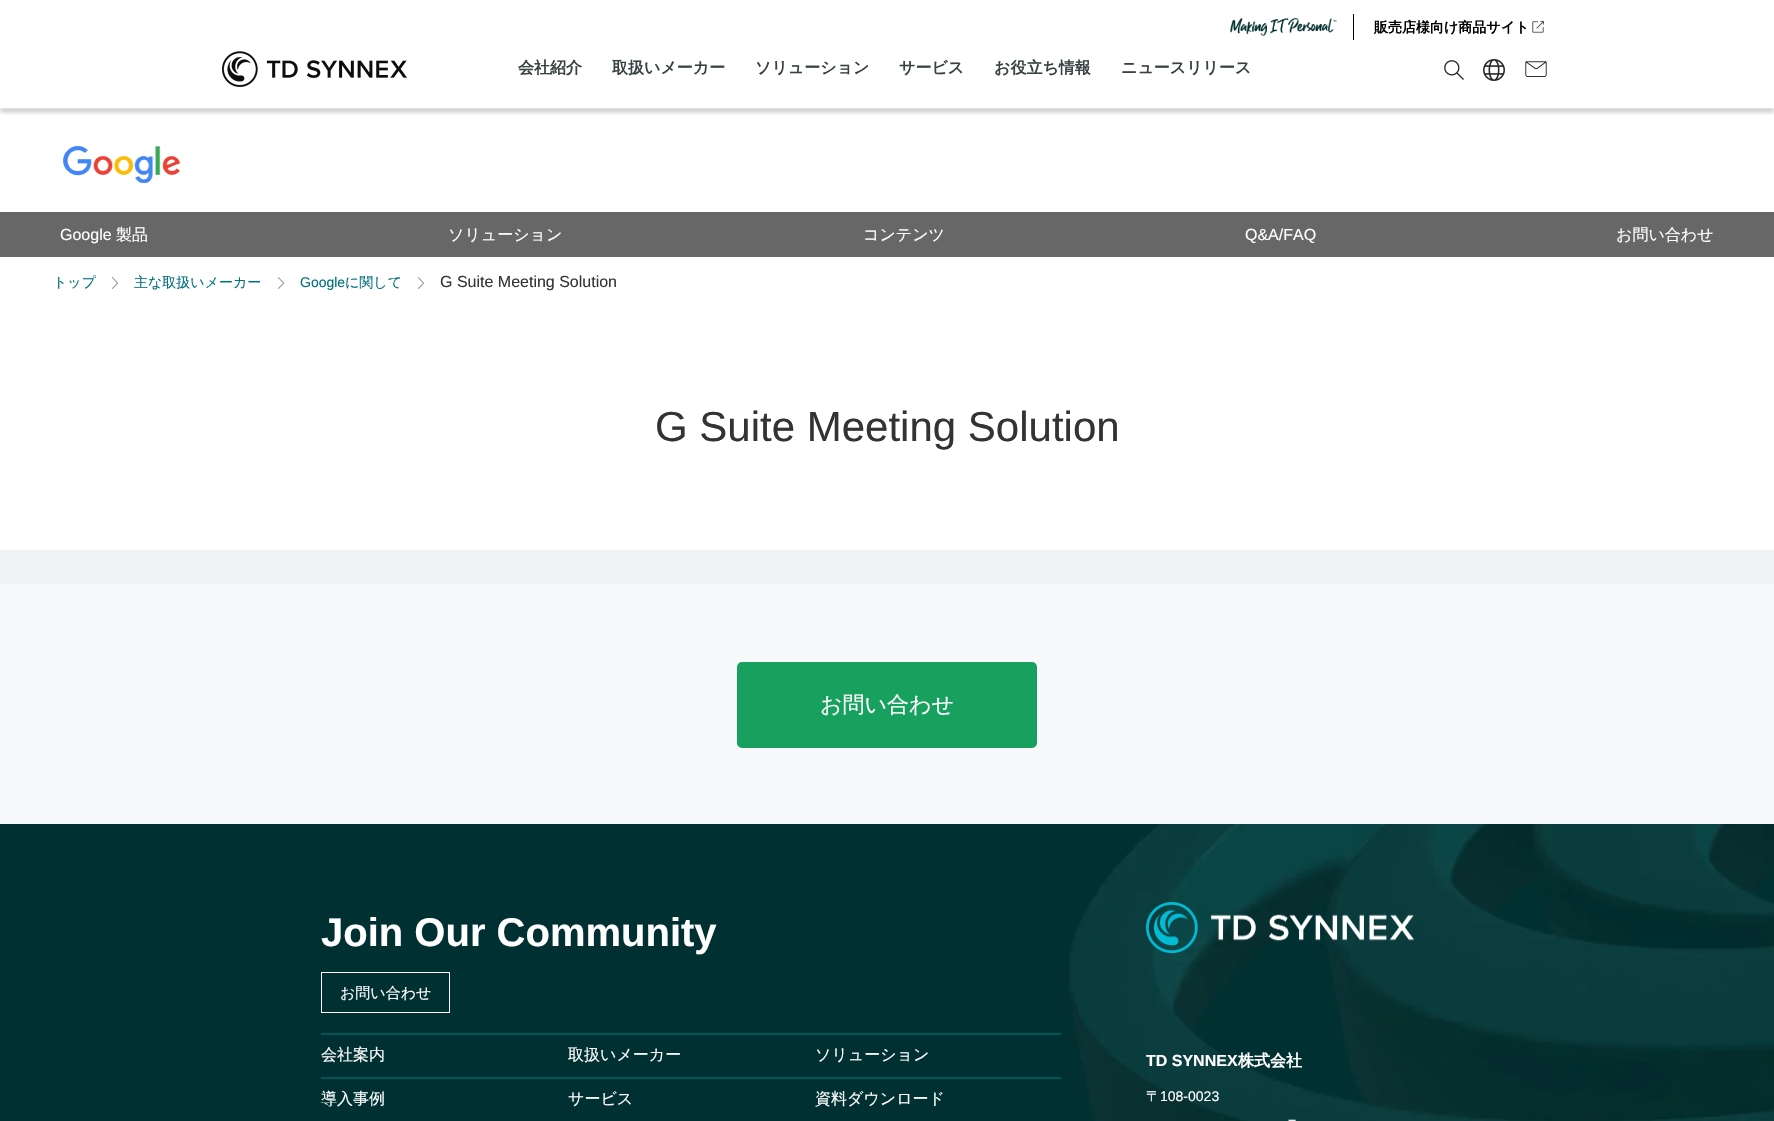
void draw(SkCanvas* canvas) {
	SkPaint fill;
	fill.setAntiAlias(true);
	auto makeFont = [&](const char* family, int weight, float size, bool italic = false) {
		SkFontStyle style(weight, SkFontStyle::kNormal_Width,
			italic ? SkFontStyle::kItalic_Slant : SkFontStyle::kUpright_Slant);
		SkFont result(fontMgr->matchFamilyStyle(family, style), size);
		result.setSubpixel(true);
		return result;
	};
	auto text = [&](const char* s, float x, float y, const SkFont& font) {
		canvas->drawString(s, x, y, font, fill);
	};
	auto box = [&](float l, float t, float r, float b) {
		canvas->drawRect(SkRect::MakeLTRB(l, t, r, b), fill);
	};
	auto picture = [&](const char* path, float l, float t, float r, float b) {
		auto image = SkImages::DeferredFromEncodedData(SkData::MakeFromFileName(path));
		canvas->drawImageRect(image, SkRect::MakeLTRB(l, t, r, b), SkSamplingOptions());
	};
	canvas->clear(0xFFFFFFFF);
	picture("image0.png", 1230, 17, 1337, 36);
	fill.setColor(0xFF000000);
	box(1353, 14, 1354, 40);
	picture("image1.png", 1532, 21, 1544, 33);
	picture("image2.png", 222, 51, 407, 87);
	picture("image3.png", 1444, 60, 1464, 80);
	picture("image4.png", 1483, 59, 1505, 81);
	picture("image5.png", 1525, 61, 1547, 77);
	canvas->save();
	canvas->clipRect(SkRect::MakeLTRB(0, 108, 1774, 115));
	fill.setColor(0x40000000);
	fill.setMaskFilter(SkMaskFilter::MakeBlur(kNormal_SkBlurStyle, 2));
	canvas->drawRect(SkRect::MakeLTRB(0, 108, 1774, 112), fill);
	fill.setMaskFilter(nullptr);
	canvas->restore();
	picture("image6.png", 63, 146, 180, 183);
	fill.setColor(0xFF676767);
	box(0, 212, 1774, 257);
	picture("image7.png", 111, 277, 119, 289);
	picture("image7.png", 277, 277, 285, 289);
	picture("image7.png", 417, 277, 425, 289);
	fill.setColor(0xFFF0F1F2);
	box(0, 550, 1774, 584);
	fill.setColor(0xFFF8F9FA);
	box(0, 584, 1774, 824);
	fill.setColor(0xFF17A05E);
	canvas->drawRoundRect(SkRect::MakeLTRB(738.5f, 663.5f, 1035.5f, 746.5f), 3.5f, 3.5f, fill);
	fill.setStyle(SkPaint::kStroke_Style);
	fill.setStrokeWidth(3);
	canvas->drawRoundRect(SkRect::MakeLTRB(738.5f, 663.5f, 1035.5f, 746.5f), 3.5f, 3.5f, fill);
	picture("image8.png", 0, 824, 1774, 1121);
	fill.setStrokeWidth(1);
	fill.setColor(0xFFFFFFFF);
	canvas->drawRect(SkRect::MakeLTRB(321.5f, 972.5f, 449.5f, 1012.5f), fill);
	fill.setStyle(SkPaint::kFill_Style);
	fill.setColor(0xFF005758);
	box(321, 1077, 1061, 1079);
	box(321, 1033, 1061, 1035);
	picture("image9.png", 1146, 902, 1414, 953);
	auto font1 = makeFont("WenQuanYi Zen Hei", 700, 14);
	fill.setColor(0xFF000000);
	text("販売店様向け商品サイト", 1374, 32, font1);
	auto font2 = makeFont("WenQuanYi Zen Hei", 700, 16);
	fill.setColor(0xFF394242);
	text("会社紹介", 518, 73, font2);
	text("取扱いメーカー", 612, 73, font2);
	text("ソリューション", 755, 73, font2);
	text("サービス", 899, 73, font2);
	text("お役立ち情報", 994, 73, font2);
	text("ニュースリリース", 1121, 73, font2);
	auto font3 = makeFont("Liberation Sans", 400, 16);
	fill.setColor(0xFFFFFFFF);
	text("Google", 60, 240, font3);
	auto font4 = makeFont("WenQuanYi Zen Hei", 500, 16);
	text("製品", 116, 240, font4);
	text("ソリューション", 448, 240, font4);
	text("コンテンツ", 863, 240, font4);
	text("Q&A/FAQ", 1245, 240, font3);
	text("お問い合わせ", 1616, 240, font4);
	auto font5 = makeFont("WenQuanYi Zen Hei", 500, 14);
	fill.setColor(0xFF00707F);
	text("トップ", 53, 287, font5);
	text("主な取扱いメーカー", 134, 287, font5);
	auto font6 = makeFont("Liberation Sans", 400, 14);
	text("Google", 300, 287, font6);
	text("に関して", 345, 287, font5);
	fill.setColor(0xFF333333);
	text("G Suite Meeting Solution", 440, 287, font3);
	auto font7 = makeFont("Liberation Sans", 400, 42);
	text("G Suite Meeting Solution", 655, 441, font7);
	auto font8 = makeFont("WenQuanYi Zen Hei", 500, 22);
	fill.setColor(0xFFFFFFFF);
	text("お問い合わせ", 820, 712, font8);
	auto font9 = makeFont("Liberation Sans", 700, 40);
	text("Join Our Community", 321, 946, font9);
	auto font10 = makeFont("WenQuanYi Zen Hei", 500, 15);
	text("お問い合わせ", 340, 998, font10);
	text("会社案内", 321, 1060, font4);
	text("取扱いメーカー", 568, 1060, font4);
	text("ソリューション", 815, 1060, font4);
	text("導入事例", 321, 1104, font4);
	text("サービス", 568, 1104, font4);
	text("資料ダウンロード", 815, 1104, font4);
	auto font11 = makeFont("Liberation Sans", 700, 16);
	text("TD SYNNEX", 1146, 1066, font11);
	text("株式会社", 1238, 1066, font2);
	text("〒", 1146, 1101, font5);
	text("108-0023", 1160, 1101, font6);
	text("−", 1288, 1125, font6);
}
